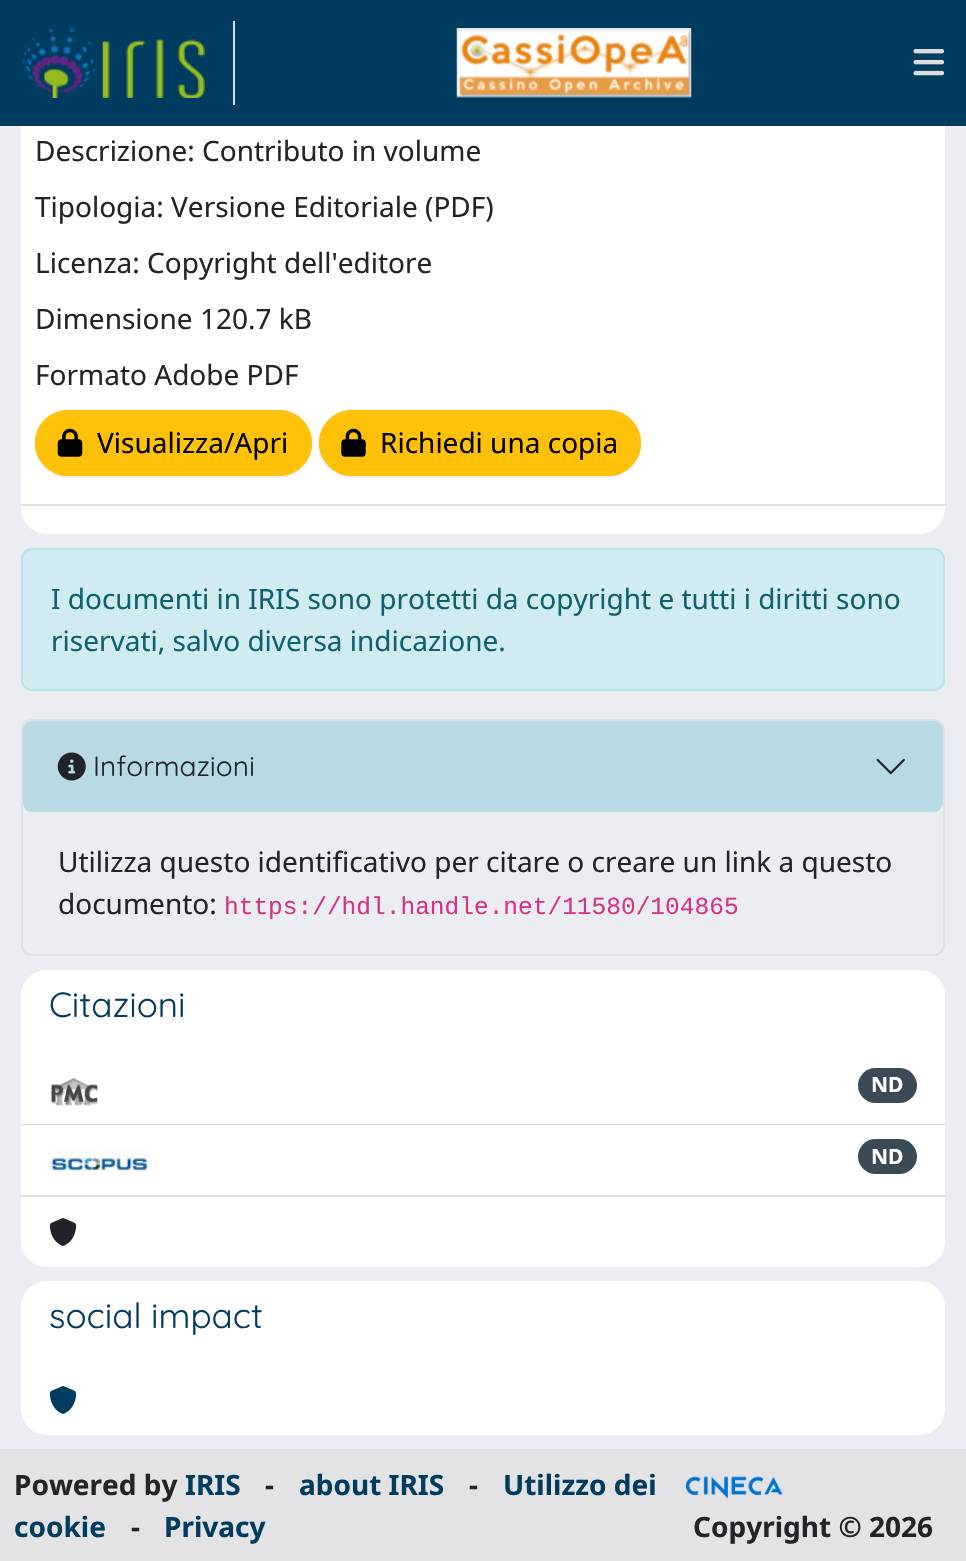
void draw(SkCanvas* canvas) {
	SkPaint fill;
	fill.setAntiAlias(true);
	auto makeFont = [&](const char* family, int weight, float size, bool italic = false) {
		SkFontStyle style(weight, SkFontStyle::kNormal_Width,
			italic ? SkFontStyle::kItalic_Slant : SkFontStyle::kUpright_Slant);
		SkFont result(fontMgr->matchFamilyStyle(family, style), size);
		result.setSubpixel(true);
		return result;
	};
	auto text = [&](const char* s, float x, float y, const SkFont& font) {
		canvas->drawString(s, x, y, font, fill);
	};
	auto box = [&](float l, float t, float r, float b) {
		canvas->drawRect(SkRect::MakeLTRB(l, t, r, b), fill);
	};
	auto roundBox = [&](float l, float t, float r, float b, float radius) {
		canvas->drawRoundRect(SkRect::MakeLTRB(l, t, r, b), radius, radius, fill);
	};
	auto picture = [&](const char* path, float l, float t, float r, float b) {
		auto image = SkImages::DeferredFromEncodedData(SkData::MakeFromFileName(path));
		canvas->drawImageRect(image, SkRect::MakeLTRB(l, t, r, b), SkSamplingOptions());
	};
	canvas->clear(0xFFECEDF2);
	fill.setColor(0xFFFFFFFF);
	roundBox(21, -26, 945, 534, 26);
	fill.setColor(0xFF003C5F);
	box(0, 0, 966, 126);
	fill.setColor(0xFFDDDDDD);
	box(233, 21, 235, 105);
	picture("image0.png", 21, 28, 205, 98);
	picture("image1.png", 456, 28, 692, 98);
	picture("image2.png", 913, 49, 945, 76);
	fill.setColor(0xFFDEE2E6);
	box(21, 504, 947, 506);
	fill.setColor(0x12000000);
	fill.setMaskFilter(SkMaskFilter::MakeBlur(kNormal_SkBlurStyle, 1));
	canvas->drawRoundRect(SkRect::MakeLTRB(35, 411, 312, 478), 33.5f, 33.5f, fill);
	fill.setMaskFilter(nullptr);
	fill.setColor(0xFFFFC107);
	roundBox(35, 410, 312, 476, 33);
	fill.setColor(0xFFFFCA2C);
	canvas->drawPath(SkPathBuilder().moveTo(68, 413).lineTo(278, 413).cubicTo(296, 413, 310, 427, 310, 443).lineTo(310, 442).cubicTo(310, 425, 296, 411, 278, 411).lineTo(68, 411).cubicTo(51, 411, 37, 425, 37, 442).lineTo(37, 443).cubicTo(37, 427, 51, 413, 68, 413).close().detach(), fill);
	fill.setStyle(SkPaint::kStroke_Style);
	fill.setStrokeWidth(2);
	fill.setColor(0xFFFFC107);
	canvas->drawRoundRect(SkRect::MakeLTRB(36, 411, 311, 475), 32, 32, fill);
	picture("image3.png", 57, 428, 83, 457);
	fill.setStyle(SkPaint::kFill_Style);
	fill.setColor(0x12000000);
	fill.setMaskFilter(SkMaskFilter::MakeBlur(kNormal_SkBlurStyle, 1));
	canvas->drawRoundRect(SkRect::MakeLTRB(319, 411, 641, 478), 33.5f, 33.5f, fill);
	fill.setMaskFilter(nullptr);
	fill.setColor(0xFFFFC107);
	roundBox(319, 410, 641, 476, 33);
	fill.setColor(0xFFFFCA2C);
	canvas->drawPath(SkPathBuilder().moveTo(352, 413).lineTo(607, 413).cubicTo(625, 413, 639, 427, 639, 443).lineTo(639, 442).cubicTo(639, 425, 625, 411, 608, 411).lineTo(352, 411).cubicTo(334, 411, 320, 425, 320, 442).lineTo(320, 443).cubicTo(320, 427, 334, 413, 352, 413).close().detach(), fill);
	fill.setStyle(SkPaint::kStroke_Style);
	fill.setColor(0xFFFFC107);
	canvas->drawRoundRect(SkRect::MakeLTRB(320, 411, 640, 475), 32, 32, fill);
	picture("image4.png", 341, 428, 366, 457);
	fill.setStyle(SkPaint::kFill_Style);
	fill.setColor(0xFFD1ECF1);
	canvas->drawRoundRect(SkRect::MakeLTRB(22, 549, 944, 690), 10, 10, fill);
	fill.setStyle(SkPaint::kStroke_Style);
	fill.setColor(0xFFB9E3EA);
	canvas->drawRoundRect(SkRect::MakeLTRB(22, 549, 944, 690), 10, 10, fill);
	fill.setColor(0xFFDEE2E6);
	canvas->drawRoundRect(SkRect::MakeLTRB(22, 720, 944, 955), 10, 10, fill);
	fill.setStyle(SkPaint::kFill_Style);
	fill.setColor(0x4017A2B8);
	roundBox(23, 721, 943, 812, 9);
	picture("image5.png", 57, 752, 86, 781);
	picture("image6.png", 876, 758, 905, 775);
	fill.setColor(0xFFFFFFFF);
	roundBox(21, 970, 945, 1267, 26);
	canvas->drawPath(SkPathBuilder().moveTo(47, 970).lineTo(919, 970).cubicTo(933.5f, 970, 945, 981.5f, 945, 996).lineTo(945, 1054).lineTo(21, 1054).lineTo(21, 996).cubicTo(21, 981.5f, 32.5f, 970, 47, 970).close().detach(), fill);
	fill.setColor(0xFFDFDFDF);
	box(21, 1124, 945, 1125);
	picture("image7.png", 50, 1077, 98, 1106);
	fill.setColor(0xFF3A4B55);
	roundBox(858, 1068, 917, 1103, 17.5f);
	fill.setColor(0xFFDFDFDF);
	box(21, 1195, 945, 1197);
	picture("image8.png", 49, 1149, 147, 1173);
	fill.setColor(0xFF3A4B55);
	roundBox(858, 1139, 917, 1174, 17.5f);
	fill.setColor(0xFFFFFFFF);
	canvas->drawPath(SkPathBuilder().moveTo(21, 1197).lineTo(945, 1197).lineTo(945, 1241).cubicTo(945, 1255.5f, 933.5f, 1267, 919, 1267).lineTo(47, 1267).cubicTo(32.5f, 1267, 21, 1255.5f, 21, 1241).close().detach(), fill);
	picture("image9.png", 49, 1218, 77, 1246);
	canvas->drawPath(SkPathBuilder().moveTo(47, 1281).lineTo(919, 1281).cubicTo(933.5f, 1281, 945, 1292.5f, 945, 1307).lineTo(945, 1365).lineTo(21, 1365).lineTo(21, 1307).cubicTo(21, 1292.5f, 32.5f, 1281, 47, 1281).close().detach(), fill);
	canvas->drawPath(SkPathBuilder().moveTo(21, 1365).lineTo(945, 1365).lineTo(945, 1409).cubicTo(945, 1423.5f, 933.5f, 1435, 919, 1435).lineTo(47, 1435).cubicTo(32.5f, 1435, 21, 1423.5f, 21, 1409).close().detach(), fill);
	picture("image10.png", 49, 1386, 77, 1414);
	fill.setColor(0xFFE3E3E5);
	box(0, 1449, 966, 1561);
	picture("image11.png", 686, 1476, 783, 1499);
	auto font1 = makeFont("Noto Sans", 400, 28);
	fill.setColor(0xFF212529);
	text("Descrizione: Contributo in volume", 35, 161, font1);
	text("Tipologia: Versione Editoriale (PDF)", 35, 217, font1);
	text("Licenza: Copyright dell'editore", 35, 273, font1);
	text("Dimensione 120.7 kB", 35, 329, font1);
	text("Formato Adobe PDF", 35, 385, font1);
	fill.setColor(0xFF000000);
	text("Visualizza/Apri", 97, 453, font1);
	text("Richiedi una copia", 380, 453, font1);
	fill.setColor(0xFF0E616E);
	text("I documenti in IRIS sono protetti da copyright e tutti i diritti sono", 51, 609, font1);
	text("riservati, salvo diversa indicazione.", 51, 651, font1);
	auto font2 = makeFont("Quicksand", 300, 28);
	fill.setColor(0xFF212529);
	text("Informazioni", 93, 776, font2);
	text("Utilizza questo identificativo per citare o creare un link a questo", 58, 872, font1);
	text("documento:", 58, 914, font1);
	auto font3 = makeFont("Liberation Mono", 400, 24.5f);
	fill.setColor(0xFFD63384);
	text("https://hdl.handle.net/11580/104865", 224, 914, font3);
	auto font4 = makeFont("Quicksand", 300, 35);
	fill.setColor(0xFF003C5F);
	text("Citazioni", 49, 1017, font4);
	auto font5 = makeFont("Noto Sans", 700, 21);
	fill.setColor(0xFFFFFFFF);
	text("ND", 871, 1092, font5);
	text("ND", 871, 1164, font5);
	fill.setColor(0xFF003C5F);
	text("social impact", 49, 1328, font4);
	auto font6 = makeFont("Noto Sans", 700, 28);
	fill.setColor(0xFF212529);
	text("Powered by", 14, 1495, font6);
	fill.setColor(0xFF003C5F);
	text("IRIS", 185, 1495, font6);
	fill.setColor(0xFF212529);
	text("-", 265, 1495, font6);
	fill.setColor(0xFF003C5F);
	text("about IRIS", 299, 1495, font6);
	fill.setColor(0xFF212529);
	text("-", 469, 1495, font6);
	fill.setColor(0xFF003C5F);
	text("Utilizzo dei", 503, 1495, font6);
	text("cookie", 14, 1537, font6);
	fill.setColor(0xFF212529);
	text("-", 131, 1537, font6);
	fill.setColor(0xFF003C5F);
	text("Privacy", 164, 1537, font6);
	fill.setColor(0xFF212529);
	text("Copyright © 2026", 693, 1537, font6);
}
